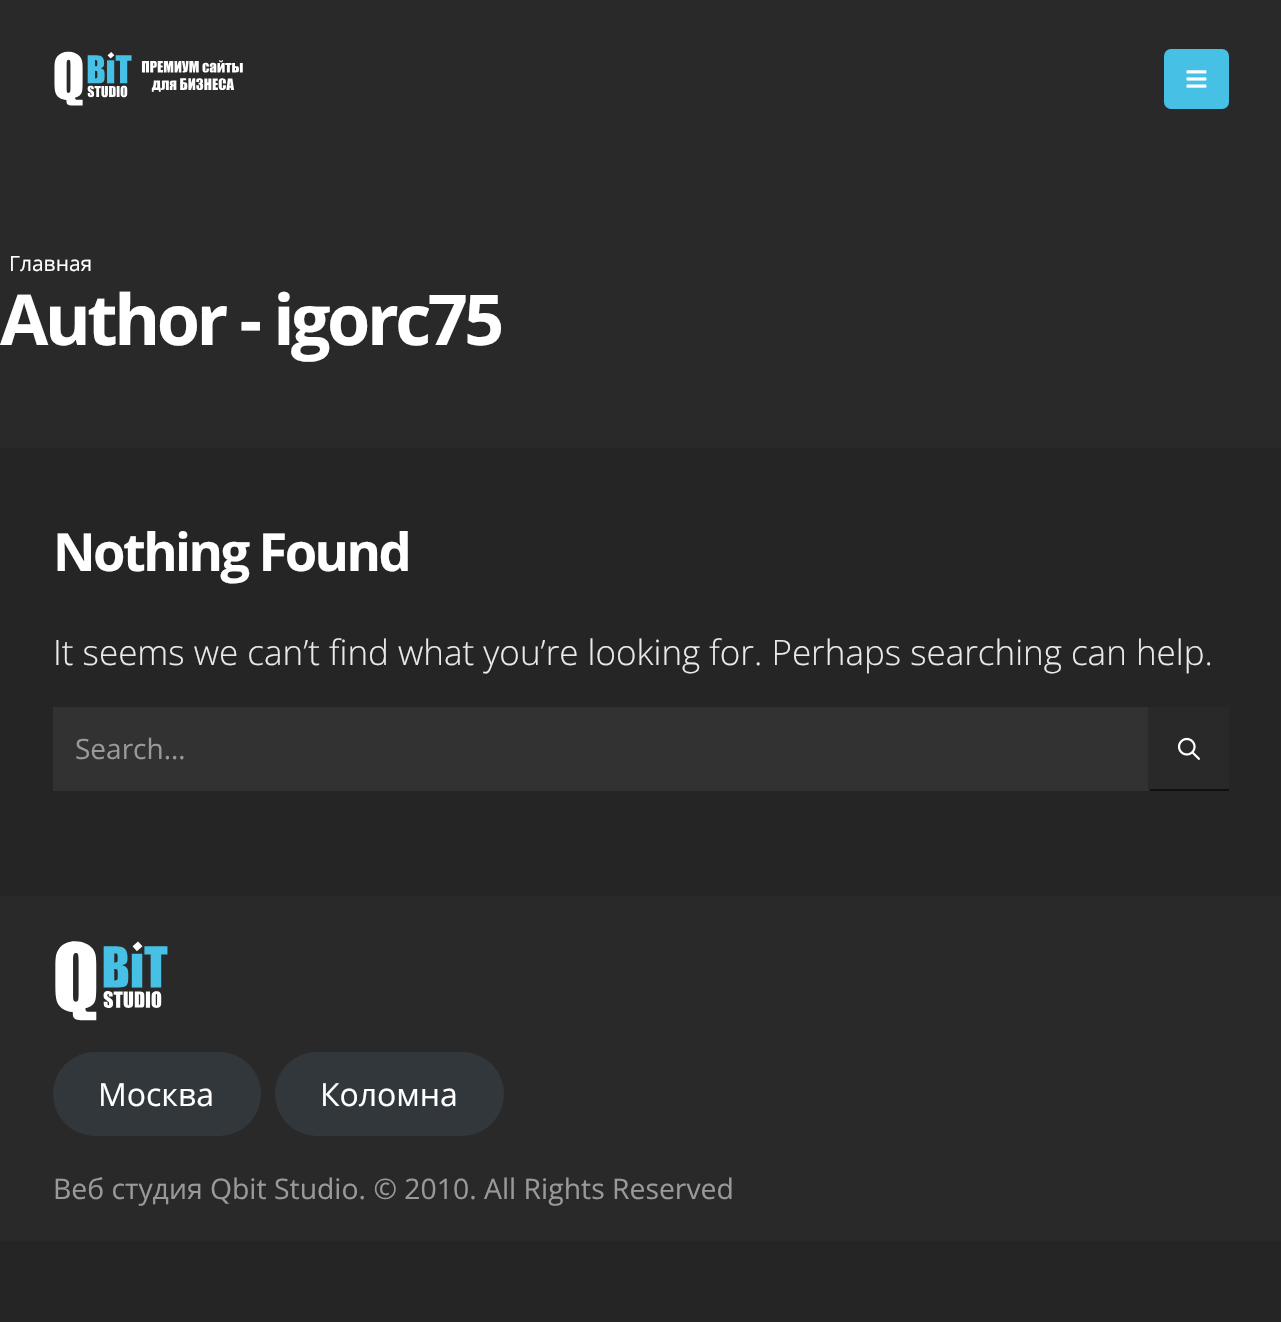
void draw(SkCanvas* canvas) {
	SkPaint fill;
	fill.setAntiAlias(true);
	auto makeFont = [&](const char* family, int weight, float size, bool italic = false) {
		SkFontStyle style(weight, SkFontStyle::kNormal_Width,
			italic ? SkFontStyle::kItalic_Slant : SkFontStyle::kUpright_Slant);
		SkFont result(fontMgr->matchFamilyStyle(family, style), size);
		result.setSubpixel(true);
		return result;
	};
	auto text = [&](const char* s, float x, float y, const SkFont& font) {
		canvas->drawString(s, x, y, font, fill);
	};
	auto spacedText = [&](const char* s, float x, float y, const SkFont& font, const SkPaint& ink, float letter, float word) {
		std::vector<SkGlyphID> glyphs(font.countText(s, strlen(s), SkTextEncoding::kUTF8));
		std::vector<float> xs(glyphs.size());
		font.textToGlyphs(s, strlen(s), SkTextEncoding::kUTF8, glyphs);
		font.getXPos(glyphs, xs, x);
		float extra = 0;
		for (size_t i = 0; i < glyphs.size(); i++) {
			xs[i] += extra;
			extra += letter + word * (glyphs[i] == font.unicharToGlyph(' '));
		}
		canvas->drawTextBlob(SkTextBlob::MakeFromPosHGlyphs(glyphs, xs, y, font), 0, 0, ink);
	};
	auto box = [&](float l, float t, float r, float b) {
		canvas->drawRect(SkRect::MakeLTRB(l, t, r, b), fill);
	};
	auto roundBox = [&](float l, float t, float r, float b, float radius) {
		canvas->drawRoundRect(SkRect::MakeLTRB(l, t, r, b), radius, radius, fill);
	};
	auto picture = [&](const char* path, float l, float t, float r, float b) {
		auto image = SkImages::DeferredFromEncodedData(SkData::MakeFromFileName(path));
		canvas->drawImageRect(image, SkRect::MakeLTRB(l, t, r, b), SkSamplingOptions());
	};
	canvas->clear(0xFF252525);
	fill.setColor(0xFF292929);
	box(0, 0, 1281, 448);
	picture("image0.png", 54, 51, 243, 106);
	fill.setColor(0xFF46C0E5);
	roundBox(1164, 49, 1229, 109, 7);
	picture("image1.png", 1186, 70, 1207, 88);
	fill.setColor(0xFF323232);
	canvas->drawRect(SkRect::MakeLTRB(54, 708, 1149, 790), fill);
	fill.setStyle(SkPaint::kStroke_Style);
	fill.setStrokeWidth(2);
	canvas->drawRect(SkRect::MakeLTRB(54, 708, 1149, 790), fill);
	fill.setStyle(SkPaint::kFill_Style);
	fill.setColor(0xFF292929);
	box(1150, 707, 1229, 789);
	fill.setColor(0xFF101010);
	box(1148, 789, 1229, 791);
	fill.setColor(0xFF292929);
	box(1148, 707, 1150, 791);
	picture("image2.png", 1177, 737, 1200, 760);
	box(0, 896, 1281, 1241);
	picture("image3.png", 55, 941, 168, 1021);
	fill.setColor(0xFF32373C);
	roundBox(53, 1052, 261, 1136, 42);
	roundBox(275, 1052, 504, 1136, 42);
	auto font1 = makeFont("Open Sans", 400, 21);
	fill.setColor(0xFFFFFFFF);
	text("Главная", 9, 271, font1);
	auto font2 = makeFont("Open Sans", 700, 70);
	spacedText("Author - igorc75", 0, 345, font2, fill, -3.5f, 0);
	auto font3 = makeFont("Open Sans", 700, 52.5f);
	spacedText("Nothing Found", 53, 571, font3, fill, -2.6f, 0);
	auto font4 = makeFont("Open Sans", 300, 35);
	fill.setColor(0xFFEAEAEA);
	text("It seems we can’t find what you’re looking for. Perhaps searching can help.", 53, 665, font4);
	auto font5 = makeFont("Open Sans", 400, 28);
	fill.setColor(0xFF999999);
	text("Search…", 75, 759, font5);
	auto font6 = makeFont("Open Sans", 400, 32);
	fill.setColor(0xFFFFFFFF);
	text("Москва", 98, 1106, font6);
	text("Коломна", 320, 1106, font6);
	auto font7 = makeFont("Open Sans", 400, 28.35f);
	fill.setColor(0xFF999999);
	text("Веб студия Qbit Studio. © 2010. All Rights Reserved", 53, 1199, font7);
}
